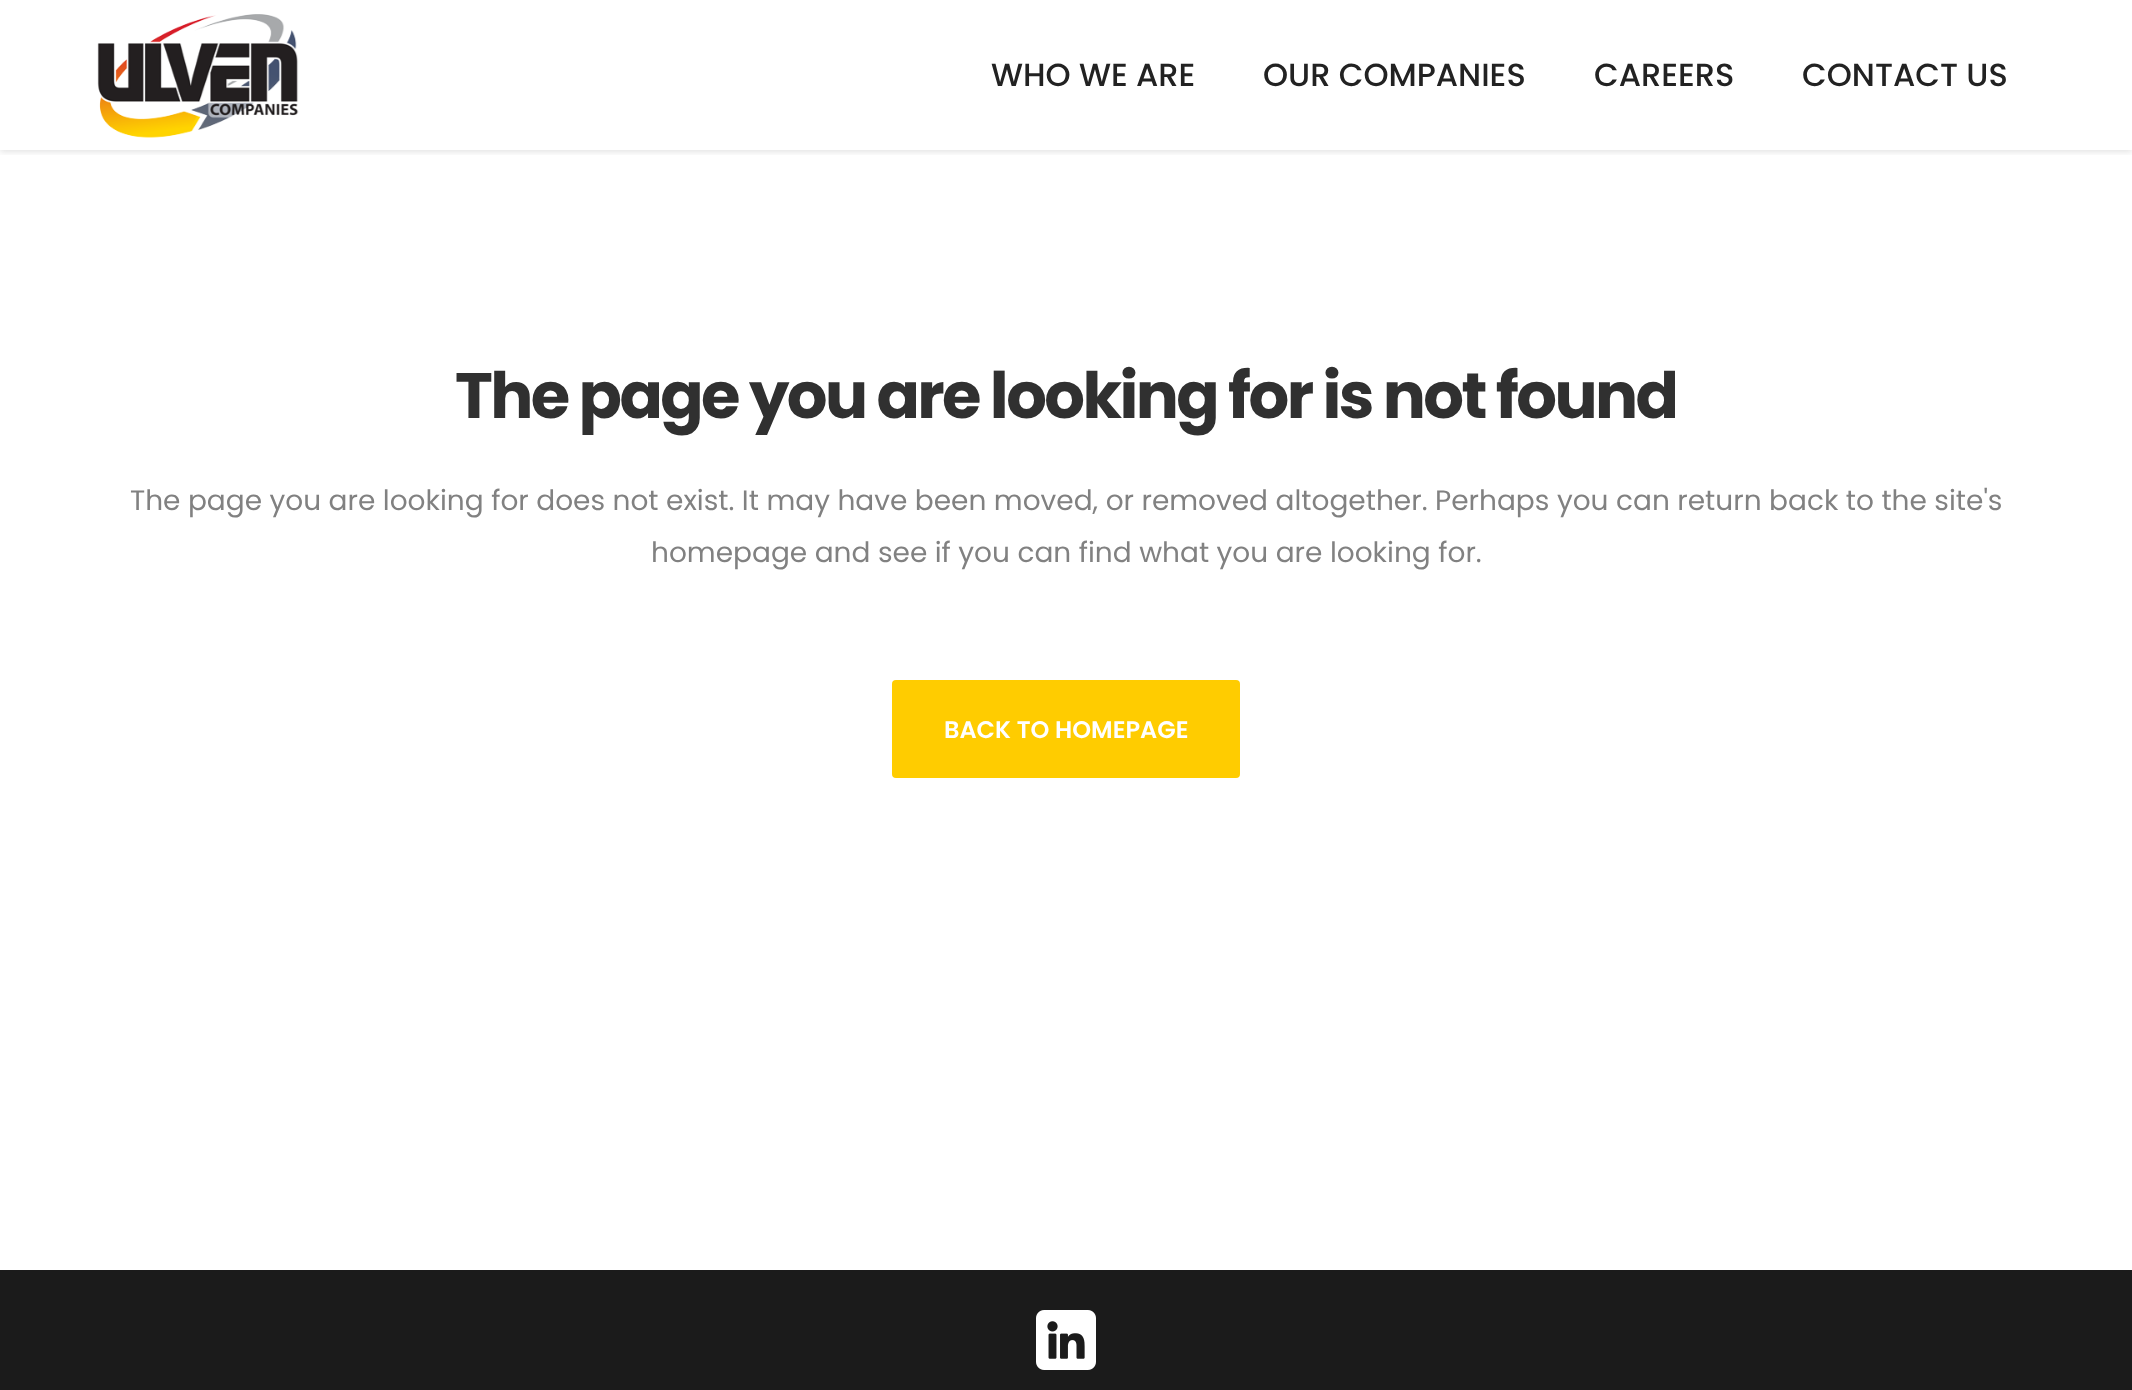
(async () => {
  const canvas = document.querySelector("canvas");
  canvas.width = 2132;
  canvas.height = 1390;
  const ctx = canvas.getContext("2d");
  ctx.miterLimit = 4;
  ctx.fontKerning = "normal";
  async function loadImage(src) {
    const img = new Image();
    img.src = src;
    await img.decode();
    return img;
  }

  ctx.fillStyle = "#ffffff";
  ctx.fillRect(0, 0, 2132, 1390);
  ctx.save();
  ctx.beginPath();
  ctx.rect(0, 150, 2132, 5);
  ctx.clip();
  ctx.fillStyle = "rgba(0, 0, 0, 0.11)";
  ctx.filter = "blur(3px)";
  ctx.beginPath();
  ctx.rect(0, 2, 2132, 150);
  ctx.fill();
  ctx.filter = "none";
  ctx.restore();
  ctx.drawImage(await loadImage("img/1.png"), 97, 14, 202, 124);
  ctx.fillStyle = "#ffcc00";
  ctx.beginPath();
  ctx.roundRect(892, 680, 348, 98, 4);
  ctx.fill();
  ctx.fillStyle = "#1b1b1b";
  ctx.fillRect(0, 1270, 2132, 120);
  ctx.drawImage(await loadImage("img/2.png"), 1036, 1310, 60, 60);
  ctx.font = "500 32px Poppins";
  ctx.fillStyle = "#222222";
  for (const [text, x, y] of [
    ["WHO WE ARE", 991, 86],
    ["OUR COMPANIES", 1263, 86],
    ["CAREERS", 1594, 86],
    ["CONTACT US", 1802, 86],
  ]) {
    ctx.fillText(text, x, y);
  }
  ctx.letterSpacing = "-2.6px";
  ctx.font = "bold 64px Poppins";
  ctx.fillStyle = "#303030";
  ctx.fillText("The page you are looking for is not found", 455, 418);
  ctx.letterSpacing = "0px";
  ctx.font = "28px Poppins";
  ctx.fillStyle = "#818181";
  ctx.fillText("The page you are looking for does not exist. It may have been moved, or removed altogether. Perhaps you can return back to the site's", 130, 510);
  ctx.fillText("homepage and see if you can find what you are looking for.", 651, 562);
  ctx.font = "600 24px Poppins";
  ctx.fillStyle = "#ffffff";
  ctx.fillText("BACK TO HOMEPAGE", 944, 738);
})();
